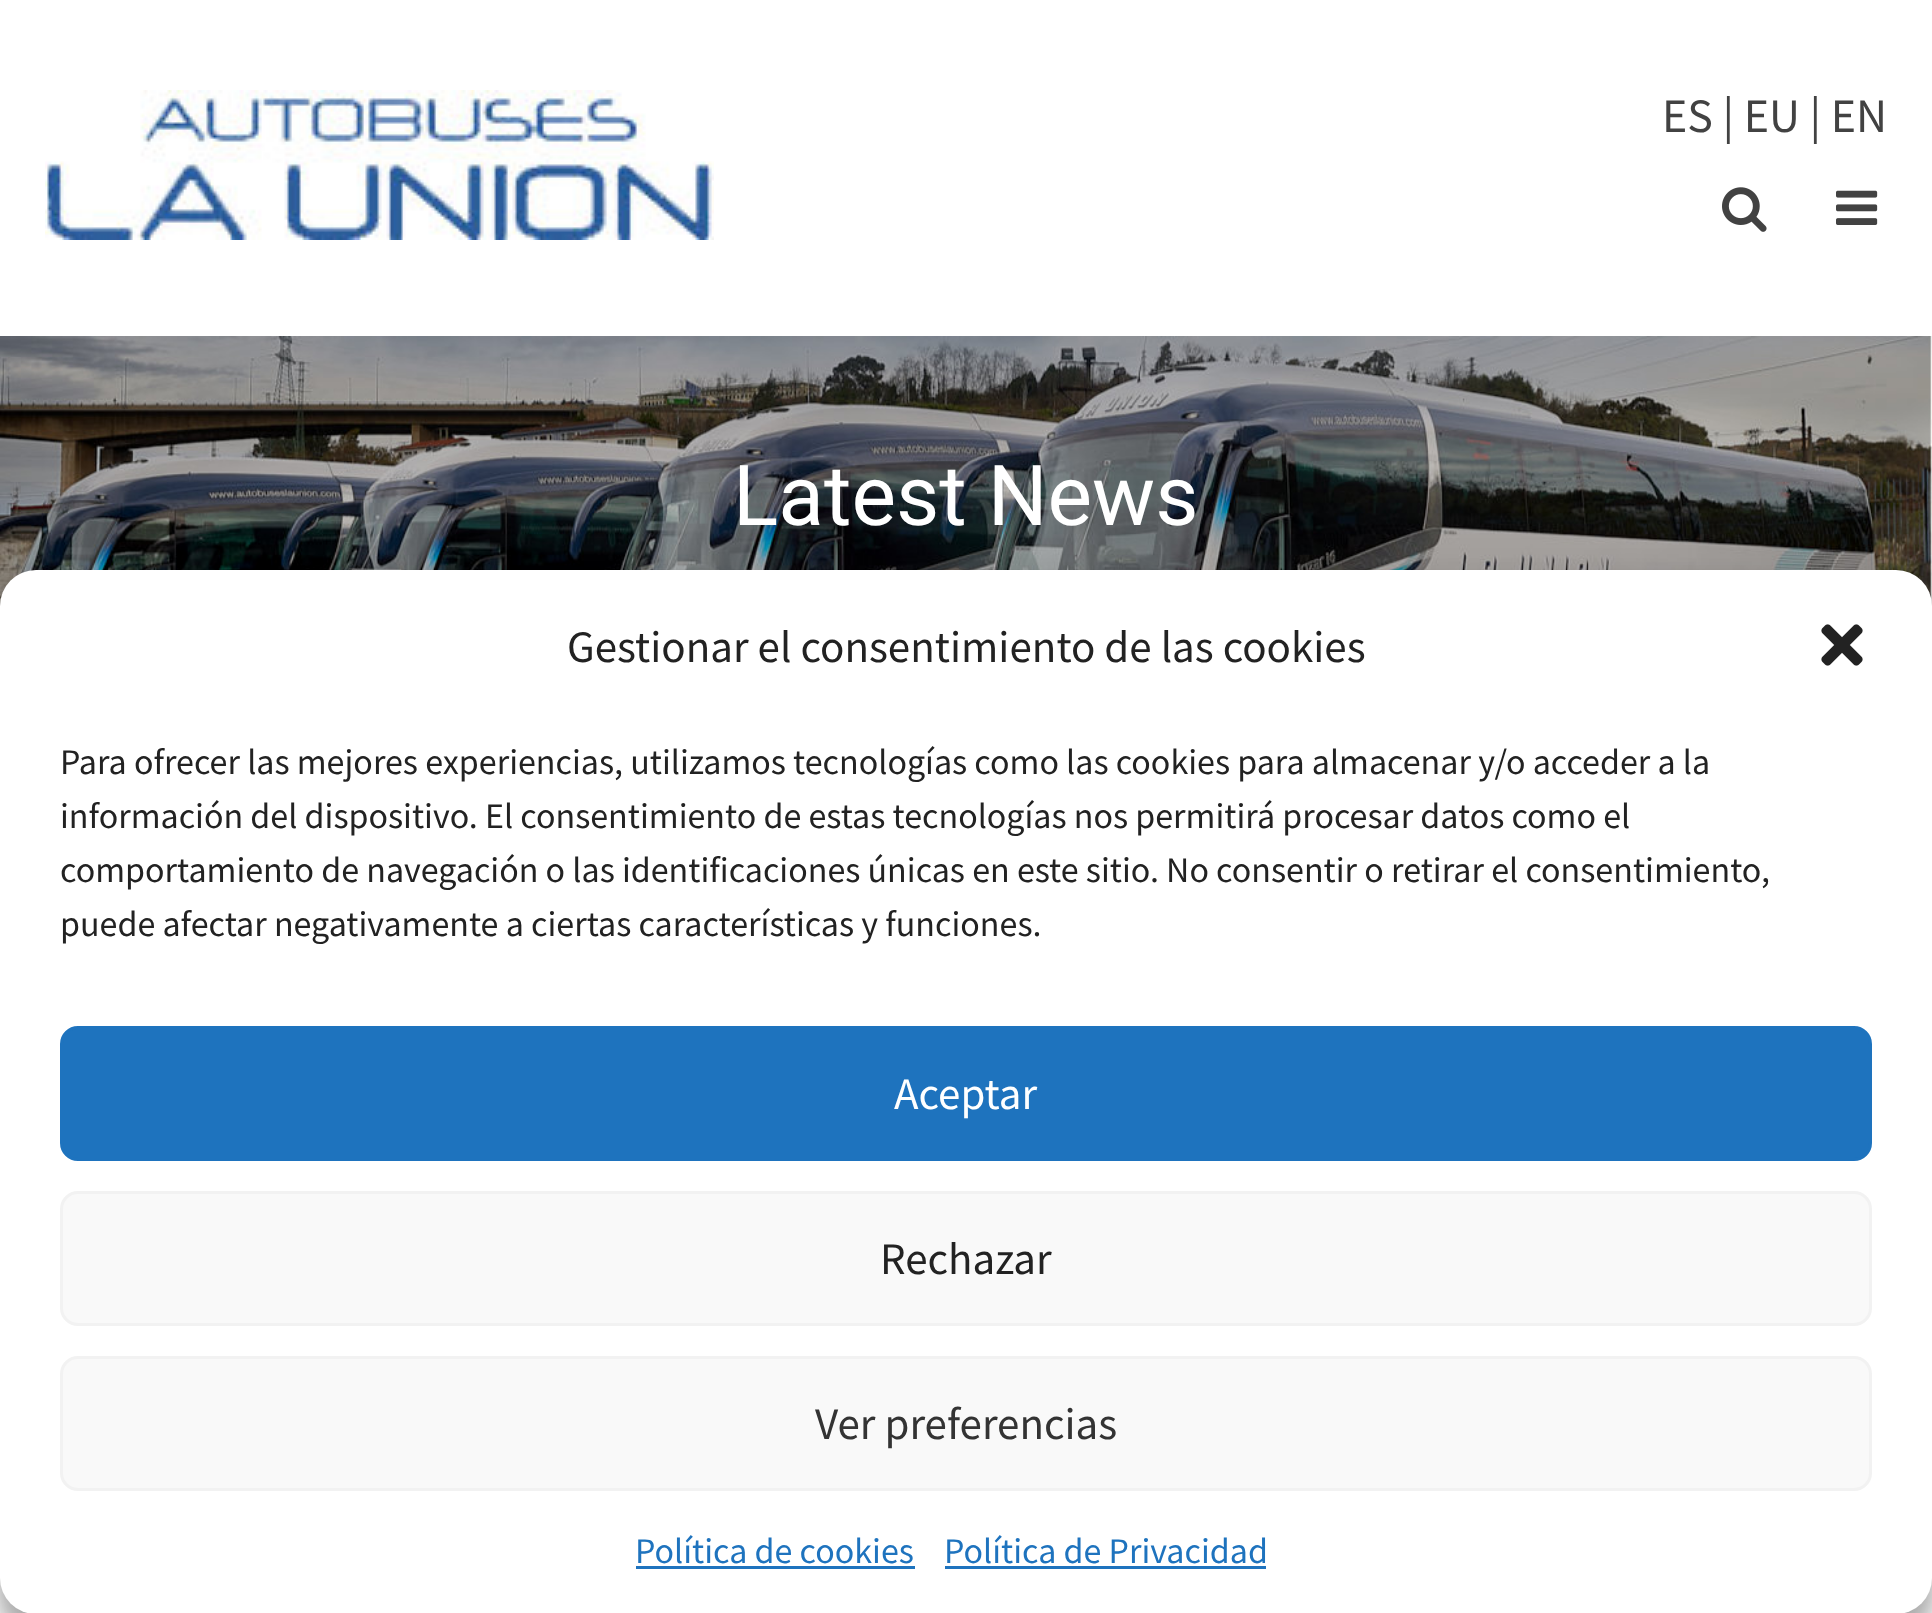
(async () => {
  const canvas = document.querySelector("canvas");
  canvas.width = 1932;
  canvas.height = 1613;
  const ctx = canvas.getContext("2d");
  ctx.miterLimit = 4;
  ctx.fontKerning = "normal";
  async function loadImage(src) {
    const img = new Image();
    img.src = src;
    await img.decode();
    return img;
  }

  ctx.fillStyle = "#ffffff";
  ctx.fillRect(0, 0, 1932, 1613);
  ctx.drawImage(await loadImage("img/1.png"), 45, 90, 669, 150);
  ctx.drawImage(await loadImage("img/2.png"), 1722, 187, 45, 45);
  ctx.drawImage(await loadImage("img/3.png"), 1836, 190, 42, 35);
  ctx.drawImage(await loadImage("img/4.png"), 0, 336, 1932, 270);
  ctx.fillStyle = "rgba(0, 0, 0, 0.23)";
  ctx.filter = "blur(9px)";
  ctx.beginPath();
  ctx.roundRect(0, 588, 1932, 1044, 36);
  ctx.fill();
  ctx.filter = "none";
  ctx.fillStyle = "rgba(0, 0, 0, 0.19)";
  ctx.filter = "blur(30px)";
  ctx.beginPath();
  ctx.roundRect(0, 600, 1932, 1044, 36);
  ctx.fill();
  ctx.filter = "none";
  ctx.fillStyle = "#ffffff";
  ctx.beginPath();
  ctx.roundRect(0, 570, 1932, 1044, 36);
  ctx.fill();
  ctx.drawImage(await loadImage("img/5.png"), 1821, 624, 42, 42);
  ctx.fillStyle = "#1e73be";
  ctx.beginPath();
  ctx.roundRect(61.5, 1027.5, 1809, 132, 16.5);
  ctx.fill();
  ctx.strokeStyle = "#1e73be";
  ctx.lineWidth = 3;
  ctx.stroke();
  ctx.fillStyle = "#f9f9f9";
  ctx.beginPath();
  ctx.roundRect(61.5, 1192.5, 1809, 132, 16.5);
  ctx.fill();
  ctx.strokeStyle = "#f2f2f2";
  ctx.stroke();
  ctx.beginPath();
  ctx.roundRect(61.5, 1357.5, 1809, 132, 16.5);
  ctx.fill();
  ctx.stroke();
  ctx.fillStyle = "#1e73be";
  ctx.fillRect(636, 1566, 279, 3);
  ctx.fillRect(945, 1566, 321, 3);
  ctx.font = "48px Source Sans Pro";
  ctx.fillStyle = "#424242";
  ctx.fillText("ES | EU | EN", 1662, 132);
  ctx.font = "84px Roboto";
  ctx.fillStyle = "#ffffff";
  ctx.fillText("Latest News", 733, 525);
  ctx.font = "45px Source Sans Pro";
  ctx.fillStyle = "#222222";
  ctx.fillText("Gestionar el consentimiento de las cookies", 567, 662);
  ctx.font = "36px Source Sans Pro";
  for (const [text, x, y] of [
    ["Para ofrecer las mejores experiencias, utilizamos tecnologías como las cookies para almacenar y/o acceder a la", 60, 774],
    ["información del dispositivo. El consentimiento de estas tecnologías nos permitirá procesar datos como el", 60, 828],
    ["comportamiento de navegación o las identificaciones únicas en este sitio. No consentir o retirar el consentimiento,", 60, 882],
    ["puede afectar negativamente a ciertas características y funciones.", 60, 936],
  ]) {
    ctx.fillText(text, x, y);
  }
  ctx.font = "45px Source Sans Pro";
  ctx.fillStyle = "#ffffff";
  ctx.fillText("Aceptar", 894, 1109);
  ctx.fillStyle = "#222222";
  ctx.fillText("Rechazar", 880, 1274);
  ctx.fillStyle = "#333333";
  ctx.fillText("Ver preferencias", 815, 1439);
  ctx.font = "36px Source Sans Pro";
  ctx.fillStyle = "#1e73be";
  ctx.fillText("Política de cookies", 635, 1563);
  ctx.fillText("Política de Privacidad", 944, 1563);
})();
